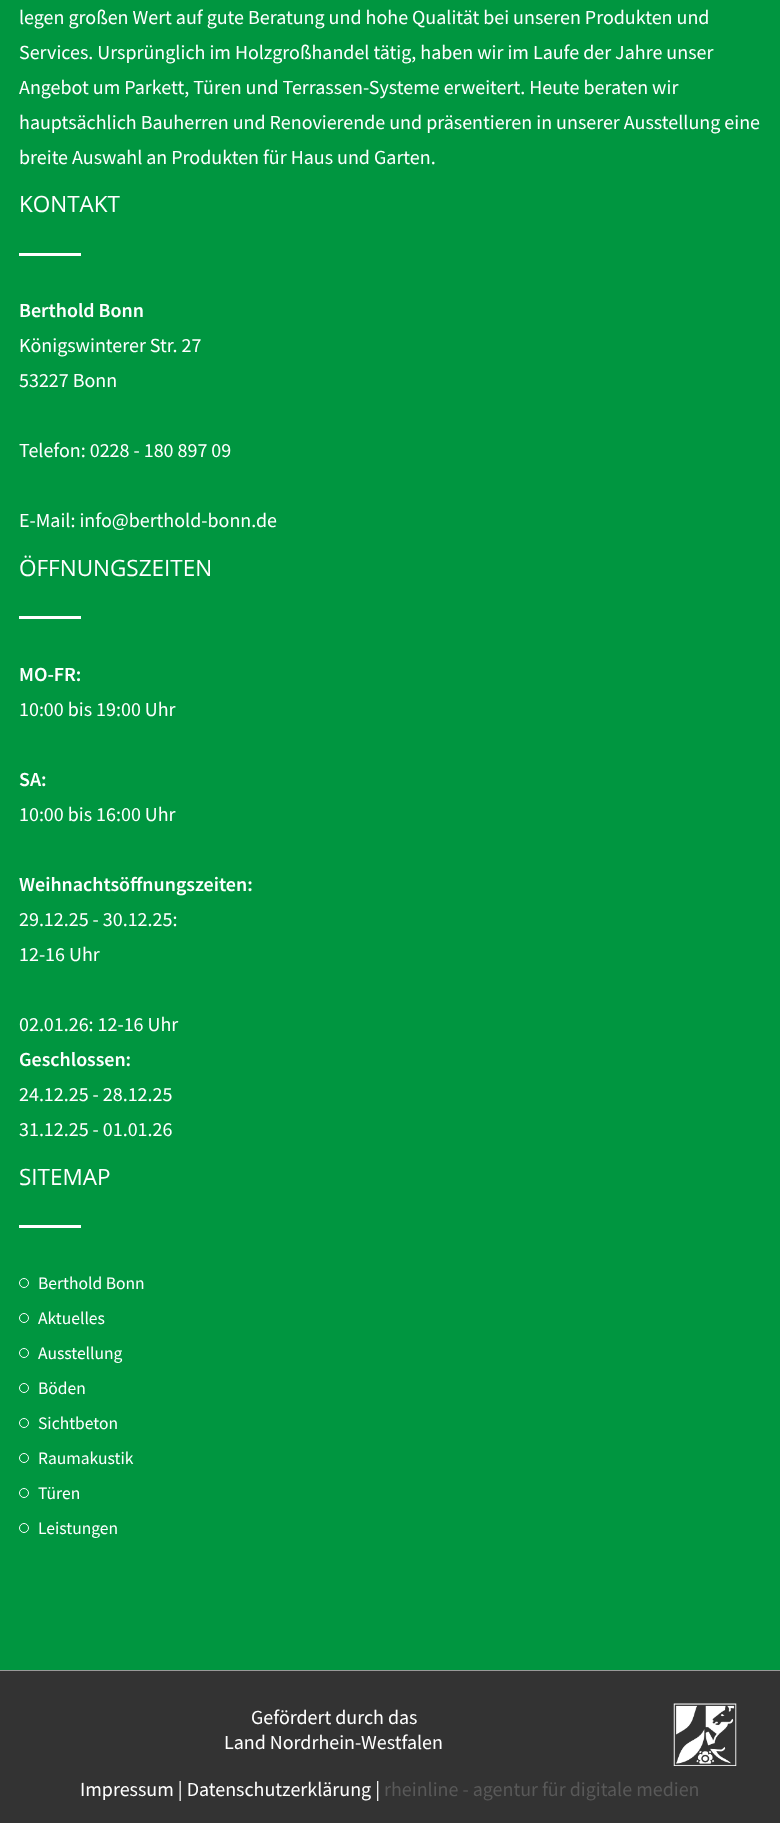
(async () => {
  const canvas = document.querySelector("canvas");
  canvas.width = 780;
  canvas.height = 1823;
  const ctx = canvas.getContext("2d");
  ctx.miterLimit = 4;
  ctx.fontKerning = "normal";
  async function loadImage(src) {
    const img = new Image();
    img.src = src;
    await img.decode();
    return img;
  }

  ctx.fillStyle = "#009640";
  ctx.fillRect(0, 0, 780, 1823);
  for (const [x, y, w, h, color] of [
    [19, 253, 62, 3, "#ffffff"],
    [19, 616, 62, 3, "#ffffff"],
    [19, 1225, 62, 3, "#ffffff"],
  ]) {
    ctx.fillStyle = color;
    ctx.fillRect(x, y, w, h);
  }
  ctx.beginPath();
  ctx.arc(24, 1283, 4.5, 0, Math.PI * 2);
  ctx.strokeStyle = "#ffffff";
  ctx.stroke();
  ctx.beginPath();
  ctx.arc(24, 1318, 4.5, 0, Math.PI * 2);
  ctx.stroke();
  ctx.beginPath();
  ctx.arc(24, 1353, 4.5, 0, Math.PI * 2);
  ctx.stroke();
  ctx.beginPath();
  ctx.arc(24, 1388, 4.5, 0, Math.PI * 2);
  ctx.stroke();
  ctx.beginPath();
  ctx.arc(24, 1423, 4.5, 0, Math.PI * 2);
  ctx.stroke();
  ctx.beginPath();
  ctx.arc(24, 1458, 4.5, 0, Math.PI * 2);
  ctx.stroke();
  ctx.beginPath();
  ctx.arc(24, 1493, 4.5, 0, Math.PI * 2);
  ctx.stroke();
  ctx.beginPath();
  ctx.arc(24, 1528, 4.5, 0, Math.PI * 2);
  ctx.stroke();
  ctx.fillStyle = "#333333";
  ctx.fillRect(0, 1671, 780, 152);
  ctx.fillStyle = "#999999";
  ctx.fillRect(0, 1670, 780, 1);
  ctx.drawImage(await loadImage("img/1.png"), 673, 1703, 64, 63);
  ctx.font = "20px Source Sans Pro";
  ctx.fillStyle = "#ffffff";
  for (const [text, x, y] of [
    ["legen großen Wert auf gute Beratung und hohe Qualität bei unseren Produkten und", 19, 24],
    ["Services. Ursprünglich im Holzgroßhandel tätig, haben wir im Laufe der Jahre unser", 19, 59],
    ["Angebot um Parkett, Türen und Terrassen-Systeme erweitert. Heute beraten wir", 19, 94],
    ["hauptsächlich Bauherren und Renovierende und präsentieren in unserer Ausstellung eine", 19, 129],
    ["breite Auswahl an Produkten für Haus und Garten.", 19, 164],
  ]) {
    ctx.fillText(text, x, y);
  }
  ctx.font = "22.5px Open Sans";
  ctx.fillText("KONTAKT", 19, 212);
  ctx.font = "600 20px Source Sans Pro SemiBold";
  ctx.fillText("Berthold Bonn", 19, 317);
  ctx.font = "20px Source Sans Pro";
  for (const [text, x, y] of [
    ["Königswinterer Str. 27", 19, 352],
    ["53227 Bonn", 19, 387],
    ["Telefon: 0228 - 180 897 09", 19, 457],
    ["E-Mail: info@berthold-bonn.de", 19, 527],
  ]) {
    ctx.fillText(text, x, y);
  }
  ctx.font = "22.5px Open Sans";
  ctx.fillText("ÖFFNUNGSZEITEN", 19, 576);
  ctx.font = "600 20px Source Sans Pro SemiBold";
  ctx.fillText("MO-FR:", 19, 681);
  ctx.font = "20px Source Sans Pro";
  ctx.fillText("10:00 bis 19:00 Uhr", 19, 716);
  ctx.font = "600 20px Source Sans Pro SemiBold";
  ctx.fillText("SA:", 19, 786);
  ctx.font = "20px Source Sans Pro";
  ctx.fillText("10:00 bis 16:00 Uhr", 19, 821);
  ctx.font = "600 20px Source Sans Pro SemiBold";
  ctx.fillText("Weihnachtsöffnungszeiten:", 19, 891);
  ctx.font = "20px Source Sans Pro";
  for (const [text, x, y] of [
    ["29.12.25 - 30.12.25:", 19, 926],
    ["12-16 Uhr", 19, 961],
    ["02.01.26: 12-16 Uhr", 19, 1031],
  ]) {
    ctx.fillText(text, x, y);
  }
  ctx.font = "600 20px Source Sans Pro SemiBold";
  ctx.fillText("Geschlossen:", 19, 1066);
  ctx.font = "20px Source Sans Pro";
  ctx.fillText("24.12.25 - 28.12.25", 19, 1101);
  ctx.fillText("31.12.25 - 01.01.26", 19, 1136);
  ctx.font = "22.5px Open Sans";
  ctx.fillText("SITEMAP", 19, 1185);
  ctx.font = "17.5px Source Sans Pro";
  for (const [text, x, y] of [
    ["Berthold Bonn", 38, 1289],
    ["Aktuelles", 38, 1324],
    ["Ausstellung", 38, 1359],
    ["Böden", 38, 1394],
    ["Sichtbeton", 38, 1429],
    ["Raumakustik", 38, 1464],
    ["Türen", 38, 1499],
    ["Leistungen", 38, 1534],
  ]) {
    ctx.fillText(text, x, y);
  }
  ctx.font = "20px Source Sans Pro";
  for (const [text, x, y] of [
    ["Gefördert durch das", 251, 1724],
    ["Land Nordrhein-Westfalen", 224, 1749],
    ["Impressum | Datenschutzerklärung |", 80, 1796],
  ]) {
    ctx.fillText(text, x, y);
  }
  ctx.fillStyle = "#595959";
  ctx.fillText("rheinline - agentur für digitale medien", 384, 1796);
})();
